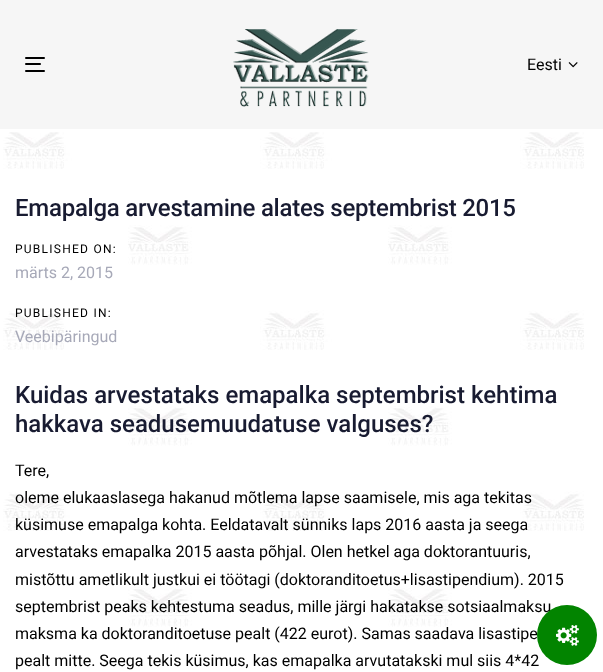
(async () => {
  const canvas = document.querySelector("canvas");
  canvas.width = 603;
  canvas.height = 672;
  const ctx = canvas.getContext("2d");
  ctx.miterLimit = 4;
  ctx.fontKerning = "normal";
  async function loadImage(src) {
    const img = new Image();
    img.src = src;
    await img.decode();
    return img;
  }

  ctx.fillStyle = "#ffffff";
  ctx.fillRect(0, 0, 603, 672);
  ctx.fillStyle = "#f6f6f6";
  ctx.fillRect(0, 0, 603, 129);
  ctx.fillStyle = "#000000";
  ctx.beginPath();
  ctx.roundRect(25, 57, 20, 2, 1);
  ctx.fill();
  ctx.beginPath();
  ctx.roundRect(25, 63, 16, 2, 1);
  ctx.fill();
  ctx.beginPath();
  ctx.roundRect(25, 70, 20, 2, 1);
  ctx.fill();
  ctx.drawImage(await loadImage("img/1.png"), 233, 29, 136, 78);
  ctx.drawImage(await loadImage("img/2.png"), 568, 62, 10, 6);
  ctx.drawImage(await loadImage("img/3.png"), 3, 132, 581, 495);
  ctx.font = "16px Roboto";
  ctx.fillText("Eesti", 527, 70);
  ctx.letterSpacing = "-0.25px";
  ctx.font = "500 24px Roboto";
  ctx.fillStyle = "#181b31";
  ctx.fillText("Emapalga arvestamine alates septembrist 2015", 15, 216);
  ctx.letterSpacing = "1.25px";
  ctx.font = "12px Roboto";
  ctx.fillStyle = "#000000";
  ctx.fillText("PUBLISHED ON:", 15, 253);
  ctx.letterSpacing = "0px";
  ctx.font = "16px Roboto";
  ctx.fillStyle = "#a7a9b8";
  ctx.fillText("märts 2, 2015", 15, 278);
  ctx.letterSpacing = "1.25px";
  ctx.font = "12px Roboto";
  ctx.fillStyle = "#000000";
  ctx.fillText("PUBLISHED IN:", 15, 317);
  ctx.letterSpacing = "0px";
  ctx.font = "16px Roboto";
  ctx.fillStyle = "#a7a9b8";
  ctx.fillText("Veebipäringud", 15, 342);
  ctx.font = "500 24px Roboto";
  ctx.fillStyle = "#181b31";
  ctx.fillText("Kuidas arvestataks emapalka septembrist kehtima", 15, 403);
  ctx.fillText("hakkava seadusemuudatuse valguses?", 15, 432);
  ctx.font = "16px Roboto";
  ctx.fillStyle = "#000000";
  for (const [text, x, y] of [
    ["Tere,", 15, 476],
    ["oleme elukaaslasega hakanud mõtlema lapse saamisele, mis aga tekitas", 15, 503],
    ["küsimuse emapalga kohta. Eeldatavalt sünniks laps 2016 aasta ja seega", 15, 530],
    ["arvestataks emapalka 2015 aasta põhjal. Olen hetkel aga doktorantuuris,", 15, 557],
    ["mistõttu ametlikult justkui ei töötagi (doktoranditoetus+lisastipendium). 2015", 15, 585],
    ["septembrist peaks kehtestuma seadus, mille järgi hakatakse sotsiaalmaksu", 15, 612],
    ["maksma ka doktoranditoetuse pealt (422 eurot). Samas saadava lisastipe", 15, 639],
    ["pealt mitte. Seega tekis küsimus, kas emapalka arvutatakski mul siis 4*42", 15, 666],
  ]) {
    ctx.fillText(text, x, y);
  }
  ctx.fillStyle = "#028400";
  ctx.beginPath();
  ctx.arc(567, 635, 30, 0, Math.PI * 2);
  ctx.fill();
  ctx.drawImage(await loadImage("img/4.png"), 556, 625, 23, 21);
})();
